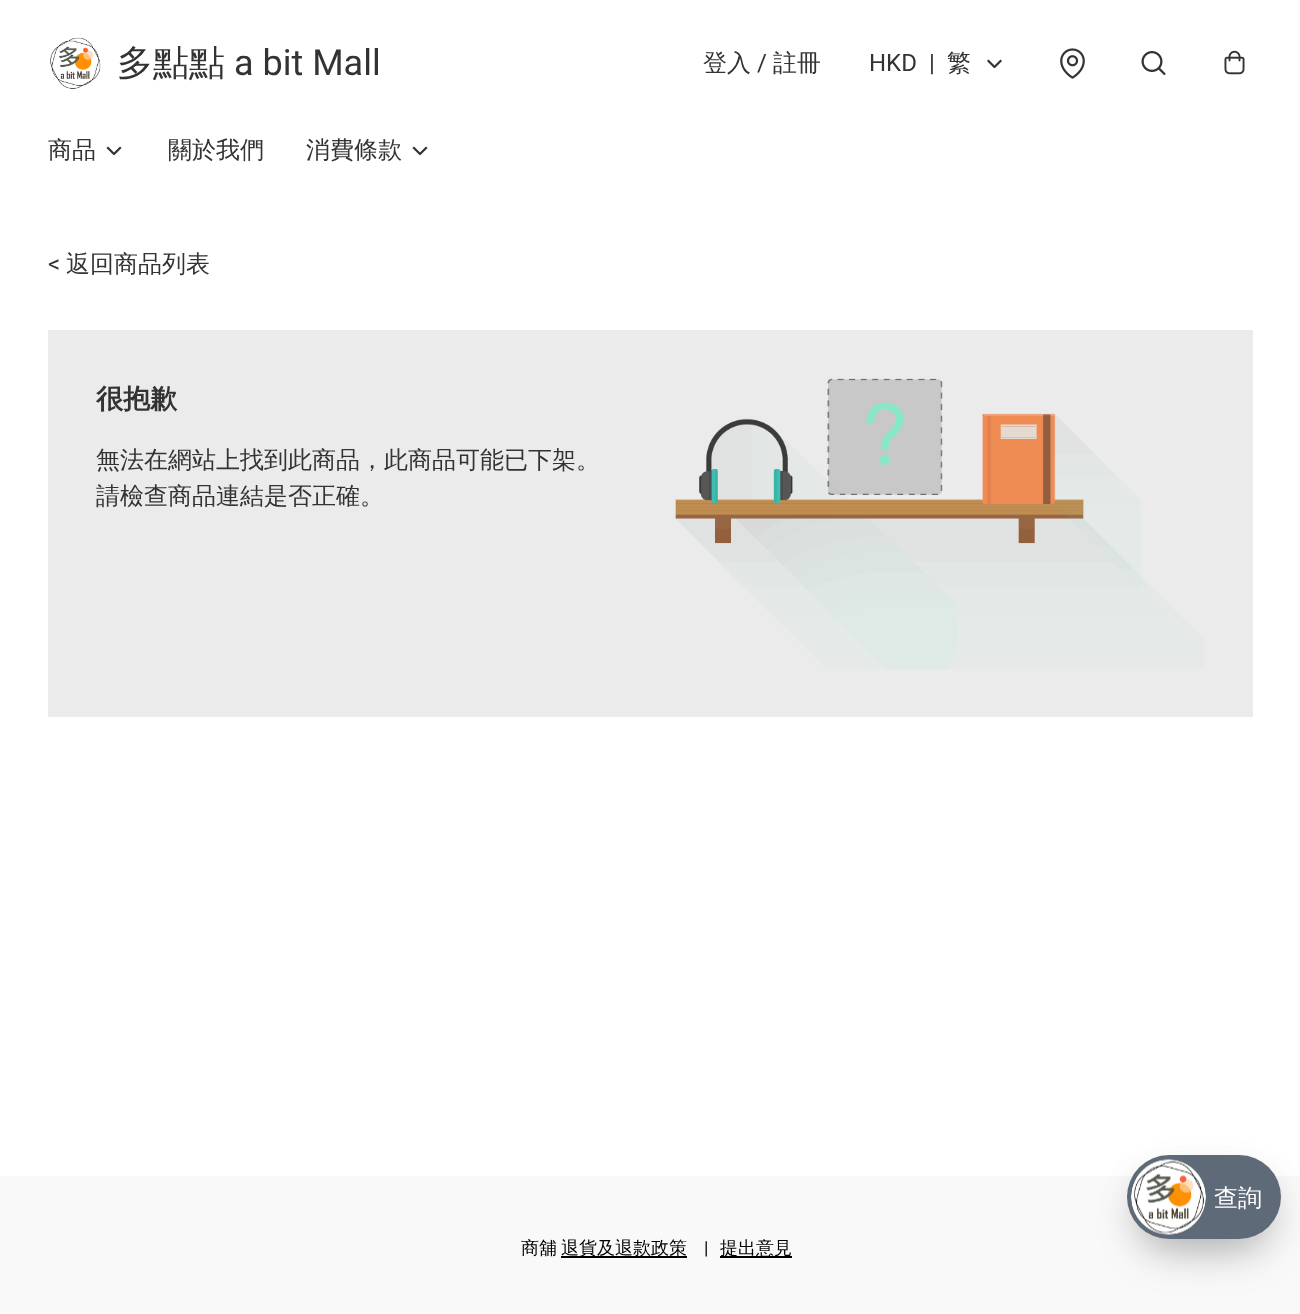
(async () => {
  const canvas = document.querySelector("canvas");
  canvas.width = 1300;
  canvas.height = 1314;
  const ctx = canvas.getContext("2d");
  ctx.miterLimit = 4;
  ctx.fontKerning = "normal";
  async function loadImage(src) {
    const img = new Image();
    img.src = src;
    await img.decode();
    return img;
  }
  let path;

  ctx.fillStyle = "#ffffff";
  ctx.fillRect(0, 0, 1300, 1314);
  ctx.drawImage(await loadImage("img/1.png"), 50, 37, 51, 52);
  path = new Path2D("M988.5 61L994.5 67L1000.5 61");
  ctx.strokeStyle = "#333333";
  ctx.lineWidth = 2.2;
  ctx.lineCap = "square";
  ctx.lineJoin = "round";
  ctx.stroke(path);
  ctx.drawImage(await loadImage("img/2.png"), 1060, 48, 25, 31);
  ctx.drawImage(await loadImage("img/3.png"), 1141, 51, 25, 24);
  ctx.drawImage(await loadImage("img/4.png"), 1224, 50, 21, 25);
  path = new Path2D("M108 148L114 154L120 148");
  ctx.stroke(path);
  path = new Path2D("M414 148L420 154L426 148");
  ctx.stroke(path);
  ctx.fillStyle = "#ebebeb";
  ctx.fillRect(48, 330, 1205, 387);
  ctx.drawImage(await loadImage("img/5.png"), 675, 378, 529, 291);
  for (const [x, y, w, h, color] of [
    [0, 1176, 1300, 138, "#f9f9f9"],
    [561, 1256, 126, 2, "#000000"],
    [720, 1256, 72, 2, "#000000"],
  ]) {
    ctx.fillStyle = color;
    ctx.fillRect(x, y, w, h);
  }
  ctx.fillStyle = "rgba(0, 0, 0, 0.3)";
  ctx.filter = "blur(22.5px)";
  ctx.beginPath();
  ctx.roundRect(1142, 1193, 124, 54, 27);
  ctx.fill();
  ctx.filter = "none";
  ctx.fillStyle = "rgba(0, 0, 0, 0.05)";
  ctx.filter = "blur(15px)";
  ctx.beginPath();
  ctx.roundRect(1127, 1163, 154, 84, 42);
  ctx.fill();
  ctx.filter = "none";
  ctx.fillStyle = "#5f6a78";
  ctx.beginPath();
  ctx.roundRect(1127, 1155, 154, 84, 42);
  ctx.fill();
  ctx.drawImage(await loadImage("img/6.png"), 1131, 1159, 75, 76);
  ctx.font = "500 36px WenQuanYi Zen Hei";
  ctx.fillStyle = "#333333";
  ctx.fillText("多點點", 117, 75);
  ctx.font = "36px Roboto";
  ctx.fillText("a bit Mall", 234, 75);
  ctx.font = "500 24px WenQuanYi Zen Hei";
  ctx.fillText("登入", 703, 71);
  ctx.font = "24px Roboto";
  ctx.fillText("/", 757, 71);
  ctx.font = "500 24px WenQuanYi Zen Hei";
  ctx.fillText("註冊", 773, 71);
  ctx.font = "24px Roboto";
  ctx.fillText("HKD", 869, 71);
  ctx.fillText("|", 929, 71);
  ctx.font = "500 24px WenQuanYi Zen Hei";
  for (const [text, x, y] of [
    ["繁", 947, 71],
    ["商品", 48, 158],
    ["關於我們", 168, 158],
    ["消費條款", 306, 158],
  ]) {
    ctx.fillText(text, x, y);
  }
  ctx.font = "24px Roboto";
  ctx.fillText("<", 48, 272);
  ctx.font = "500 24px WenQuanYi Zen Hei";
  ctx.fillText("返回商品列表", 66, 272);
  ctx.font = "bold 27px WenQuanYi Zen Hei";
  ctx.fillText("很抱歉", 96, 408);
  ctx.font = "500 24px WenQuanYi Zen Hei";
  ctx.fillText("無法在網站上找到此商品，此商品可能已下架。", 96, 468);
  ctx.fillText("請檢查商品連結是否正確。", 96, 504);
  ctx.font = "500 18px WenQuanYi Zen Hei";
  ctx.fillStyle = "#000000";
  ctx.fillText("商舖", 521, 1254);
  ctx.fillText("退貨及退款政策", 561, 1254);
  ctx.font = "18px Roboto";
  ctx.fillText("|", 704, 1254);
  ctx.font = "500 18px WenQuanYi Zen Hei";
  ctx.fillText("提出意見", 720, 1254);
  ctx.font = "500 24px WenQuanYi Zen Hei";
  ctx.fillStyle = "#ffffff";
  ctx.fillText("查詢", 1214, 1206);
})();
